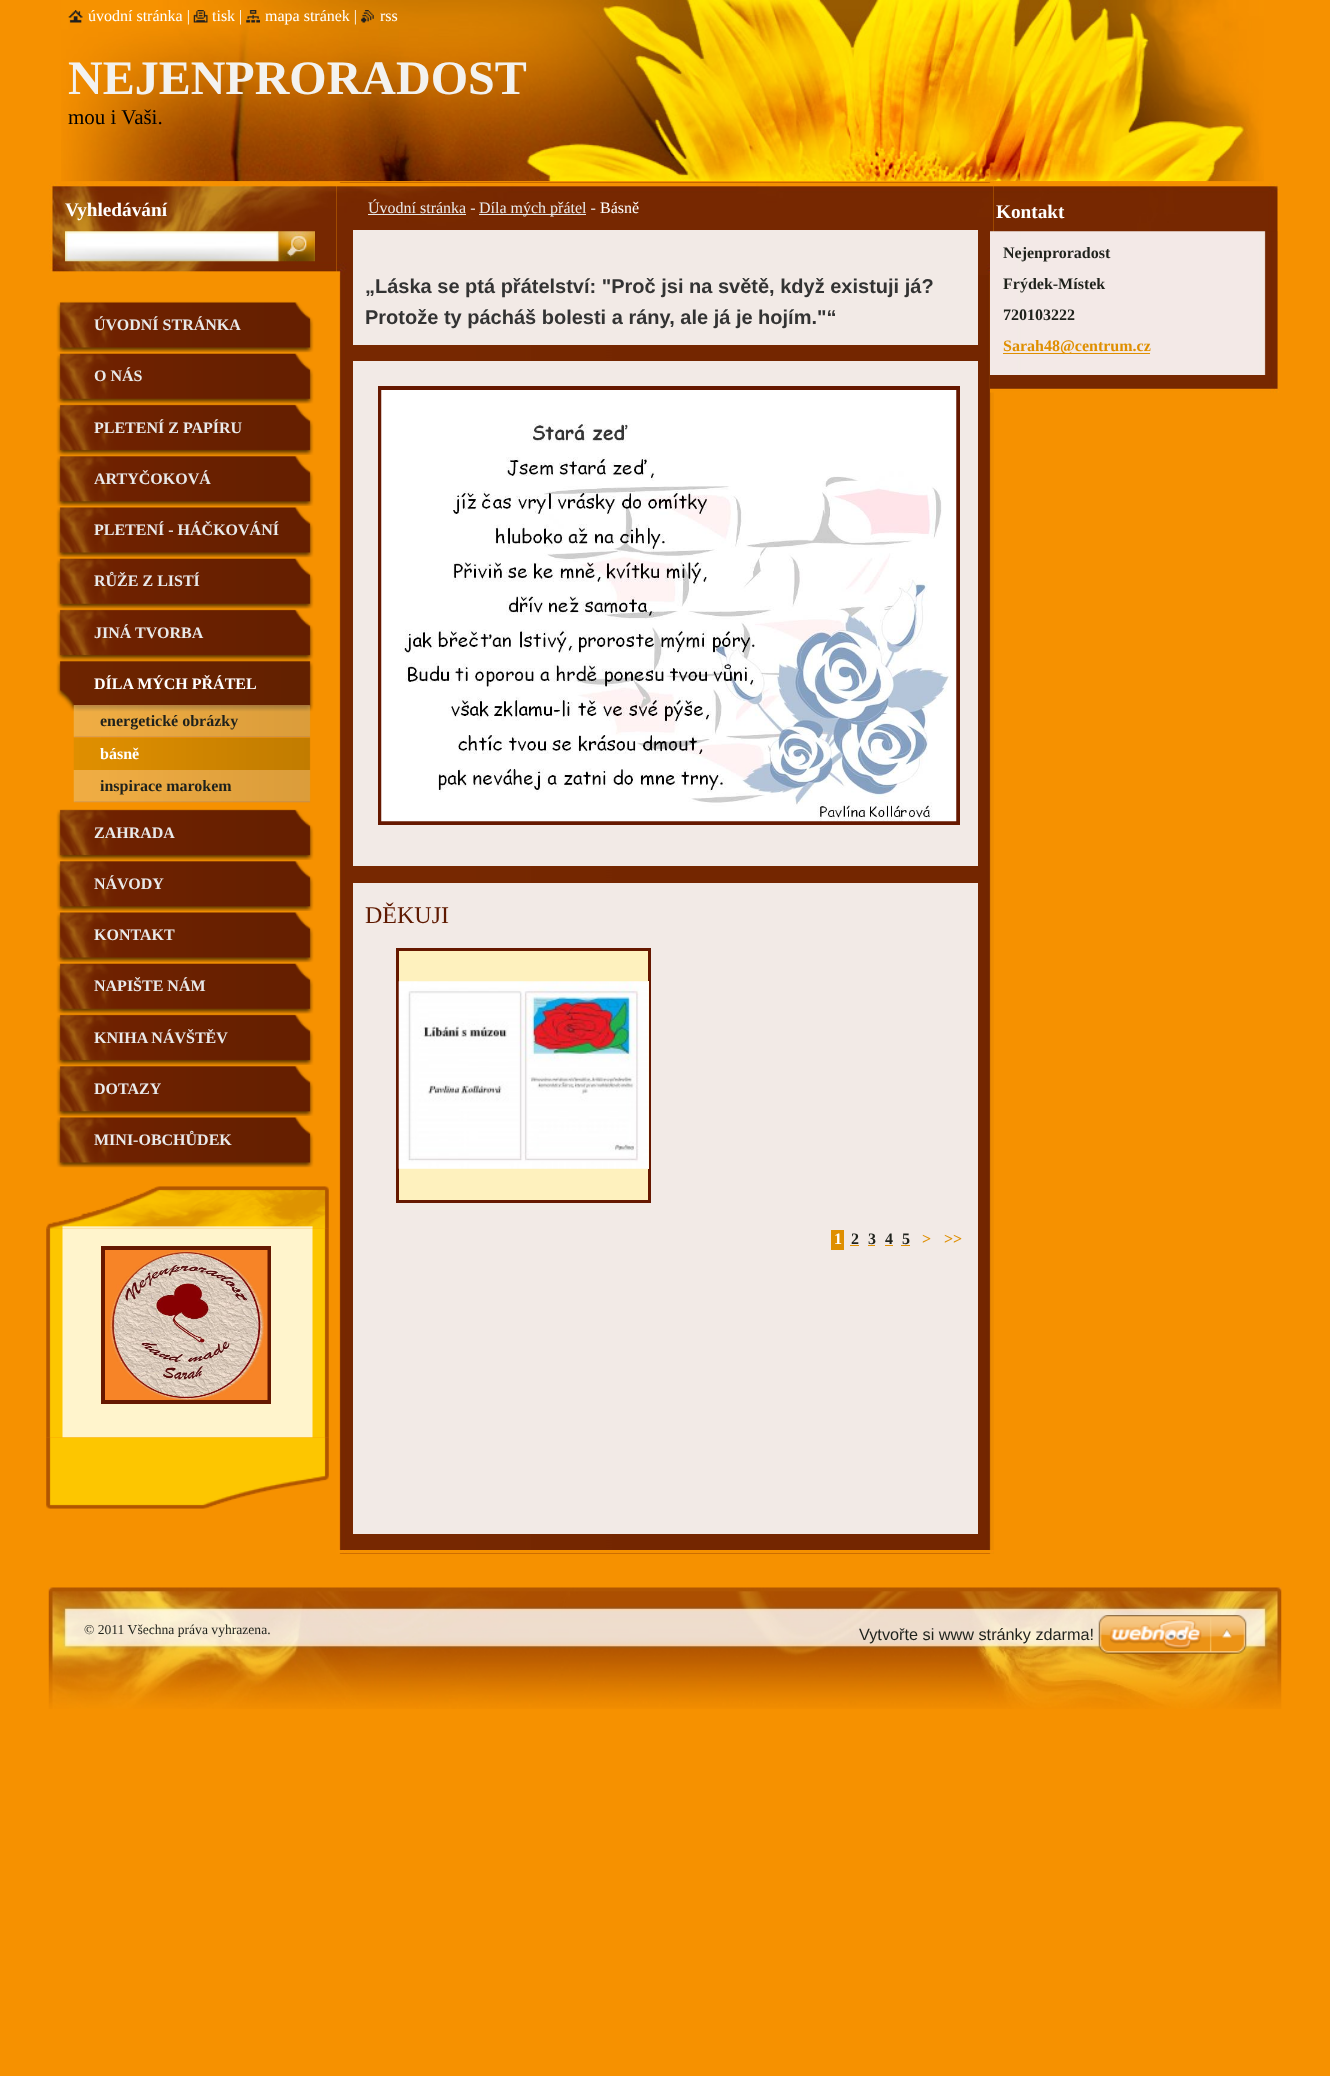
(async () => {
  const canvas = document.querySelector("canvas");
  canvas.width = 1330;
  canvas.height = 2076;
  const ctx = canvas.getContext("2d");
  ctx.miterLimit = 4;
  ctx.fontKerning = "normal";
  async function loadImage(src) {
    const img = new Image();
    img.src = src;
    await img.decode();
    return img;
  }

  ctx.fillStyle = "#f69100";
  ctx.fillRect(0, 0, 1330, 2076);
  ctx.drawImage(await loadImage("img/5.png"), 61, 0, 1203, 182);
  ctx.drawImage(await loadImage("img/1.png"), 68, 10, 15, 13);
  ctx.drawImage(await loadImage("img/2.png"), 193, 10, 15, 13);
  ctx.drawImage(await loadImage("img/3.png"), 246, 10, 14, 13);
  ctx.drawImage(await loadImage("img/4.png"), 361, 10, 13, 13);
  ctx.drawImage(await loadImage("img/6.png"), 49, 182, 1230, 93);
  ctx.drawImage(await loadImage("img/7.png"), 65, 231, 214, 31);
  ctx.drawImage(await loadImage("img/8.png"), 278, 231, 37, 31);
  ctx.drawImage(await loadImage("img/9.png"), 336, 182, 658, 1372);
  ctx.drawImage(await loadImage("img/10.png"), 336, 182, 658, 93);
  for (const [x, y, w, h, color] of [
    [368, 214, 98, 1, "#e9e9e9"],
    [479, 214, 107, 1, "#e9e9e9"],
    [353, 230, 625, 115, "#f2eae6"],
    [353, 361, 625, 505, "#f2eae6"],
  ]) {
    ctx.fillStyle = color;
    ctx.fillRect(x, y, w, h);
  }
  ctx.strokeStyle = "#661800";
  ctx.lineWidth = 4;
  ctx.strokeRect(380, 388, 578, 435);
  ctx.drawImage(await loadImage("img/11.png"), 381, 390, 576, 432);
  ctx.fillRect(353, 883, 625, 651);
  ctx.fillStyle = "#fef1be";
  ctx.beginPath();
  ctx.rect(397.5, 949.5, 252, 252);
  ctx.fill();
  ctx.lineWidth = 3;
  ctx.stroke();
  ctx.fillRect(648, 981, 1, 188);
  ctx.drawImage(await loadImage("img/12.png"), 398, 981, 251, 188);
  for (const [x, y, w, h, color] of [
    [831, 1230, 13, 20, "#df8f00"],
    [850, 1245, 9, 1, "#df8f00"],
    [868, 1245, 7, 1, "#df8f00"],
    [885, 1245, 8, 1, "#df8f00"],
    [901, 1245, 9, 1, "#df8f00"],
  ]) {
    ctx.fillStyle = color;
    ctx.fillRect(x, y, w, h);
  }
  ctx.drawImage(await loadImage("img/13.png"), 339, 1550, 655, 4);
  ctx.drawImage(await loadImage("img/14.png"), 990, 231, 289, 144);
  ctx.fillRect(1003, 353, 147, 1);
  ctx.drawImage(await loadImage("img/15.png"), 990, 375, 290, 18);
  ctx.drawImage(await loadImage("img/16.png"), 56, 301, 258, 52);
  ctx.drawImage(await loadImage("img/17.png"), 56, 353, 258, 51);
  ctx.drawImage(await loadImage("img/18.png"), 56, 404, 258, 51);
  ctx.drawImage(await loadImage("img/19.png"), 56, 455, 258, 51);
  ctx.drawImage(await loadImage("img/16.png"), 56, 506, 258, 52);
  ctx.drawImage(await loadImage("img/20.png"), 56, 558, 258, 51);
  ctx.drawImage(await loadImage("img/18.png"), 56, 609, 258, 51);
  ctx.drawImage(await loadImage("img/21.png"), 56, 660, 258, 52);
  ctx.drawImage(await loadImage("img/22.png"), 73, 705, 238, 33);
  ctx.drawImage(await loadImage("img/23.png"), 73, 737, 238, 33);
  ctx.drawImage(await loadImage("img/24.png"), 73, 770, 238, 33);
  ctx.drawImage(await loadImage("img/18.png"), 56, 809, 258, 51);
  ctx.drawImage(await loadImage("img/19.png"), 56, 860, 258, 51);
  ctx.drawImage(await loadImage("img/16.png"), 56, 911, 258, 52);
  ctx.drawImage(await loadImage("img/17.png"), 56, 963, 258, 51);
  ctx.drawImage(await loadImage("img/18.png"), 56, 1014, 258, 51);
  ctx.drawImage(await loadImage("img/19.png"), 56, 1065, 258, 51);
  ctx.drawImage(await loadImage("img/16.png"), 56, 1116, 258, 52);
  ctx.drawImage(await loadImage("img/25.png"), 46, 1186, 283, 43);
  ctx.drawImage(await loadImage("img/26.png"), 46, 1228, 283, 210);
  ctx.lineWidth = 4;
  ctx.strokeRect(103, 1248, 166, 154);
  ctx.drawImage(await loadImage("img/27.png"), 105, 1250, 163, 150);
  ctx.drawImage(await loadImage("img/28.png"), 46, 1437, 283, 72);
  ctx.drawImage(await loadImage("img/29.png"), 48, 1587, 1234, 122);
  ctx.drawImage(await loadImage("img/30.png"), 1098, 1615, 149, 39);
  ctx.font = "16px Liberation Serif";
  ctx.fillStyle = "#ffffff";
  for (const [text, x, y] of [
    ["úvodní stránka |", 88, 21],
    ["tisk |", 212, 21],
    ["mapa stránek |", 265, 21],
    ["rss", 380, 21],
  ]) {
    ctx.fillText(text, x, y);
  }
  ctx.font = "bold 48px Liberation Serif";
  ctx.fillStyle = "#f3f2ef";
  ctx.fillText("NEJENPRORADOST", 68, 94);
  ctx.font = "21px Liberation Serif";
  ctx.fillStyle = "#000000";
  ctx.fillText("mou i Vaši.", 68, 124);
  ctx.font = "bold 19.25px Liberation Serif";
  ctx.fillStyle = "#ffffff";
  ctx.fillText("Vyhledávání", 65, 216);
  ctx.font = "16px Liberation Serif";
  ctx.fillStyle = "#e9e9e9";
  ctx.fillText("Úvodní stránka -", 368, 213);
  ctx.fillText("Díla mých přátel -", 479, 213);
  ctx.fillStyle = "#ffffff";
  ctx.fillText("Básně", 600, 213);
  ctx.font = "bold 20px Liberation Sans";
  ctx.fillStyle = "#333333";
  ctx.fillText("„Láska se ptá přátelství: \"Proč jsi na světě, když existuji já?", 365, 293);
  ctx.fillText("Protože ty pácháš bolesti a rány, ale já je hojím.\"“", 365, 324);
  ctx.font = "24px Liberation Serif";
  ctx.fillStyle = "#5f1900";
  ctx.fillText("DĚKUJI", 365, 923);
  ctx.font = "bold 16px Liberation Serif";
  ctx.fillStyle = "#ffffff";
  ctx.fillText("1", 834, 1244);
  ctx.fillStyle = "#1f221c";
  for (const [text, x, y] of [
    ["2", 851, 1244],
    ["3", 868, 1244],
    ["4", 885, 1244],
    ["5", 902, 1244],
  ]) {
    ctx.fillText(text, x, y);
  }
  ctx.fillStyle = "#df8f00";
  ctx.fillText(">", 922, 1244);
  ctx.fillText(">>", 944, 1244);
  ctx.font = "bold 19.25px Liberation Serif";
  ctx.fillStyle = "#ffffff";
  ctx.fillText("Kontakt", 996, 218);
  ctx.font = "bold 16px Liberation Serif";
  ctx.fillStyle = "#1f221c";
  for (const [text, x, y] of [
    ["Nejenproradost", 1003, 258],
    ["Frýdek-Místek", 1003, 289],
    ["720103222", 1003, 320],
  ]) {
    ctx.fillText(text, x, y);
  }
  ctx.fillStyle = "#df8f00";
  ctx.fillText("Sarah48@centrum.cz", 1003, 351);
  ctx.fillStyle = "#e9e9e9";
  for (const [text, x, y] of [
    ["ÚVODNÍ STRÁNKA", 94, 330],
    ["O NÁS", 94, 381],
    ["PLETENÍ Z PAPÍRU", 94, 433],
    ["ARTYČOKOVÁ", 94, 484],
    ["PLETENÍ - HÁČKOVÁNÍ", 94, 535],
    ["RŮŽE Z LISTÍ", 94, 586],
    ["JINÁ TVORBA", 94, 638],
  ]) {
    ctx.fillText(text, x, y);
  }
  ctx.fillStyle = "#ffffff";
  ctx.fillText("DÍLA MÝCH PŘÁTEL", 94, 689);
  ctx.fillStyle = "#1f221c";
  ctx.fillText("energetické obrázky", 100, 726);
  ctx.fillStyle = "#ffffff";
  ctx.fillText("básně", 100, 759);
  ctx.fillStyle = "#1f221c";
  ctx.fillText("inspirace marokem", 100, 791);
  ctx.fillStyle = "#e9e9e9";
  for (const [text, x, y] of [
    ["ZAHRADA", 94, 838],
    ["NÁVODY", 94, 889],
    ["KONTAKT", 94, 940],
    ["NAPIŠTE NÁM", 94, 991],
    ["KNIHA NÁVŠTĚV", 94, 1043],
    ["DOTAZY", 94, 1094],
    ["MINI-OBCHŮDEK", 94, 1145],
  ]) {
    ctx.fillText(text, x, y);
  }
  ctx.font = "13.6px Liberation Serif";
  ctx.fillStyle = "#1f221c";
  ctx.fillText("© 2011 Všechna práva vyhrazena.", 84, 1634);
  ctx.font = "16.25px Liberation Sans";
  ctx.fillText("Vytvořte si www stránky zdarma!", 859, 1640);
})();
